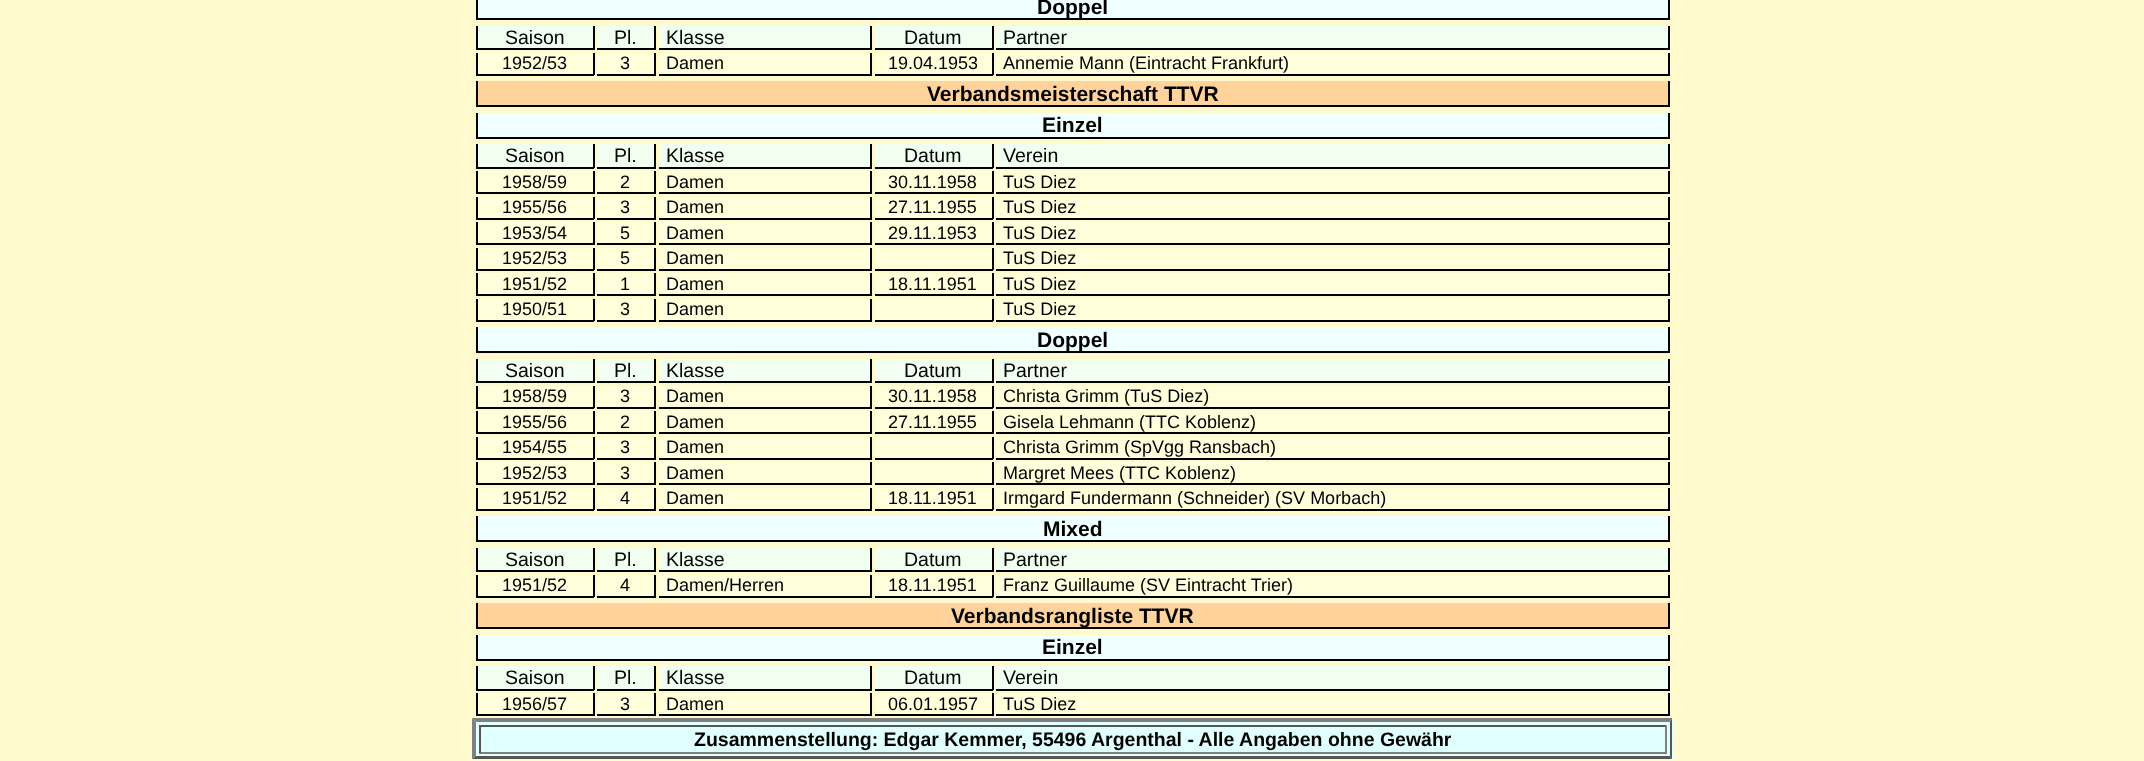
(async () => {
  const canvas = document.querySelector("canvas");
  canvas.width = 2144;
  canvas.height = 761;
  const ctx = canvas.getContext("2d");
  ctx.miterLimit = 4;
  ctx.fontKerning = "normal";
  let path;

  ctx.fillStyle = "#fffacd";
  ctx.fillRect(0, 0, 2144, 761);
  for (const [x, y, w, h, color] of [
    [478, 0, 1190, 18, "#f0ffff"],
    [1668, 0, 2, 20, "#000000"],
    [476, 18, 1194, 2, "#000000"],
    [476, 0, 2, 20, "#000000"],
    [478, 26, 115, 22, "#f0fff0"],
    [593, 26, 2, 24, "#000000"],
    [476, 48, 118, 2, "#000000"],
    [476, 26, 2, 24, "#000000"],
    [597, 26, 57, 22, "#f0fff0"],
    [654, 26, 2, 24, "#000000"],
    [597, 48, 59, 2, "#000000"],
    [659, 26, 211, 22, "#f0fff0"],
    [870, 26, 2, 24, "#000000"],
    [659, 48, 213, 2, "#000000"],
    [875, 26, 117, 22, "#f0fff0"],
    [992, 26, 2, 24, "#000000"],
    [875, 48, 118, 2, "#000000"],
    [996, 26, 672, 22, "#f0fff0"],
    [1668, 26, 2, 24, "#000000"],
    [996, 48, 674, 2, "#000000"],
    [478, 53, 115, 21, "#ffffdc"],
    [593, 53, 2, 22, "#000000"],
    [476, 74, 118, 2, "#000000"],
    [476, 53, 2, 22, "#000000"],
    [597, 53, 57, 21, "#ffffdc"],
    [654, 53, 2, 22, "#000000"],
    [597, 74, 59, 2, "#000000"],
    [659, 53, 211, 21, "#ffffdc"],
    [870, 53, 2, 22, "#000000"],
    [659, 74, 213, 2, "#000000"],
    [875, 53, 117, 21, "#ffffdc"],
    [992, 53, 2, 22, "#000000"],
    [875, 74, 118, 2, "#000000"],
    [996, 53, 672, 21, "#ffffdc"],
    [1668, 53, 2, 22, "#000000"],
    [996, 74, 674, 2, "#000000"],
    [478, 81, 1190, 24, "#ffd39b"],
    [1668, 81, 2, 26, "#000000"],
    [476, 105, 1194, 2, "#000000"],
    [476, 81, 2, 26, "#000000"],
    [478, 113, 1190, 24, "#f0ffff"],
    [1668, 113, 2, 25, "#000000"],
    [476, 137, 1194, 2, "#000000"],
    [476, 113, 2, 25, "#000000"],
    [478, 144, 115, 23, "#f0fff0"],
    [593, 144, 2, 24, "#000000"],
    [476, 167, 118, 2, "#000000"],
    [476, 144, 2, 24, "#000000"],
    [597, 144, 57, 23, "#f0fff0"],
    [654, 144, 2, 24, "#000000"],
    [597, 167, 59, 2, "#000000"],
    [659, 144, 211, 23, "#f0fff0"],
    [870, 144, 2, 24, "#000000"],
    [659, 167, 213, 2, "#000000"],
    [875, 144, 117, 23, "#f0fff0"],
    [992, 144, 2, 24, "#000000"],
    [875, 167, 118, 2, "#000000"],
    [996, 144, 672, 23, "#f0fff0"],
    [1668, 144, 2, 24, "#000000"],
    [996, 167, 674, 2, "#000000"],
    [478, 171, 115, 21, "#ffffdc"],
    [593, 171, 2, 23, "#000000"],
    [476, 192, 118, 2, "#000000"],
    [476, 171, 2, 23, "#000000"],
    [597, 171, 57, 21, "#ffffdc"],
    [654, 171, 2, 23, "#000000"],
    [597, 192, 59, 2, "#000000"],
    [659, 171, 211, 21, "#ffffdc"],
    [870, 171, 2, 23, "#000000"],
    [659, 192, 213, 2, "#000000"],
    [875, 171, 117, 21, "#ffffdc"],
    [992, 171, 2, 23, "#000000"],
    [875, 192, 118, 2, "#000000"],
    [996, 171, 672, 21, "#ffffdc"],
    [1668, 171, 2, 23, "#000000"],
    [996, 192, 674, 2, "#000000"],
    [478, 197, 115, 21, "#ffffdc"],
    [593, 197, 2, 22, "#000000"],
    [476, 218, 118, 2, "#000000"],
    [476, 197, 2, 22, "#000000"],
    [597, 197, 57, 21, "#ffffdc"],
    [654, 197, 2, 22, "#000000"],
    [597, 218, 59, 2, "#000000"],
    [659, 197, 211, 21, "#ffffdc"],
    [870, 197, 2, 22, "#000000"],
    [659, 218, 213, 2, "#000000"],
    [875, 197, 117, 21, "#ffffdc"],
    [992, 197, 2, 22, "#000000"],
    [875, 218, 118, 2, "#000000"],
    [996, 197, 672, 21, "#ffffdc"],
    [1668, 197, 2, 22, "#000000"],
    [996, 218, 674, 2, "#000000"],
    [478, 222, 115, 21, "#ffffdc"],
    [593, 222, 2, 23, "#000000"],
    [476, 243, 118, 2, "#000000"],
    [476, 222, 2, 23, "#000000"],
    [597, 222, 57, 21, "#ffffdc"],
    [654, 222, 2, 23, "#000000"],
    [597, 243, 59, 2, "#000000"],
    [659, 222, 211, 21, "#ffffdc"],
    [870, 222, 2, 23, "#000000"],
    [659, 243, 213, 2, "#000000"],
    [875, 222, 117, 21, "#ffffdc"],
    [992, 222, 2, 23, "#000000"],
    [875, 243, 118, 2, "#000000"],
    [996, 222, 672, 21, "#ffffdc"],
    [1668, 222, 2, 23, "#000000"],
    [996, 243, 674, 2, "#000000"],
    [478, 248, 115, 21, "#ffffdc"],
    [593, 248, 2, 22, "#000000"],
    [476, 269, 118, 2, "#000000"],
    [476, 248, 2, 22, "#000000"],
    [597, 248, 57, 21, "#ffffdc"],
    [654, 248, 2, 22, "#000000"],
    [597, 269, 59, 2, "#000000"],
    [659, 248, 211, 21, "#ffffdc"],
    [870, 248, 2, 22, "#000000"],
    [659, 269, 213, 2, "#000000"],
    [875, 248, 117, 21, "#ffffdc"],
    [992, 248, 2, 22, "#000000"],
    [875, 269, 118, 2, "#000000"],
    [996, 248, 672, 21, "#ffffdc"],
    [1668, 248, 2, 22, "#000000"],
    [996, 269, 674, 2, "#000000"],
    [478, 273, 115, 21, "#ffffdc"],
    [593, 273, 2, 23, "#000000"],
    [476, 294, 118, 2, "#000000"],
    [476, 273, 2, 23, "#000000"],
    [597, 273, 57, 21, "#ffffdc"],
    [654, 273, 2, 23, "#000000"],
    [597, 294, 59, 2, "#000000"],
    [659, 273, 211, 21, "#ffffdc"],
    [870, 273, 2, 23, "#000000"],
    [659, 294, 213, 2, "#000000"],
    [875, 273, 117, 21, "#ffffdc"],
    [992, 273, 2, 23, "#000000"],
    [875, 294, 118, 2, "#000000"],
    [996, 273, 672, 21, "#ffffdc"],
    [1668, 273, 2, 23, "#000000"],
    [996, 294, 674, 2, "#000000"],
    [478, 299, 115, 21, "#ffffdc"],
    [593, 299, 2, 22, "#000000"],
    [476, 320, 118, 2, "#000000"],
    [476, 299, 2, 22, "#000000"],
    [597, 299, 57, 21, "#ffffdc"],
    [654, 299, 2, 22, "#000000"],
    [597, 320, 59, 2, "#000000"],
    [659, 299, 211, 21, "#ffffdc"],
    [870, 299, 2, 22, "#000000"],
    [659, 320, 213, 2, "#000000"],
    [875, 299, 117, 21, "#ffffdc"],
    [992, 299, 2, 22, "#000000"],
    [875, 320, 118, 2, "#000000"],
    [996, 299, 672, 21, "#ffffdc"],
    [1668, 299, 2, 22, "#000000"],
    [996, 320, 674, 2, "#000000"],
    [478, 327, 1190, 24, "#f0ffff"],
    [1668, 327, 2, 26, "#000000"],
    [476, 351, 1194, 2, "#000000"],
    [476, 327, 2, 26, "#000000"],
    [478, 359, 115, 22, "#f0fff0"],
    [593, 359, 2, 24, "#000000"],
    [476, 381, 118, 2, "#000000"],
    [476, 359, 2, 24, "#000000"],
    [597, 359, 57, 22, "#f0fff0"],
    [654, 359, 2, 24, "#000000"],
    [597, 381, 59, 2, "#000000"],
    [659, 359, 211, 22, "#f0fff0"],
    [870, 359, 2, 24, "#000000"],
    [659, 381, 213, 2, "#000000"],
    [875, 359, 117, 22, "#f0fff0"],
    [992, 359, 2, 24, "#000000"],
    [875, 381, 118, 2, "#000000"],
    [996, 359, 672, 22, "#f0fff0"],
    [1668, 359, 2, 24, "#000000"],
    [996, 381, 674, 2, "#000000"],
    [478, 386, 115, 21, "#ffffdc"],
    [593, 386, 2, 22, "#000000"],
    [476, 407, 118, 2, "#000000"],
    [476, 386, 2, 22, "#000000"],
    [597, 386, 57, 21, "#ffffdc"],
    [654, 386, 2, 22, "#000000"],
    [597, 407, 59, 2, "#000000"],
    [659, 386, 211, 21, "#ffffdc"],
    [870, 386, 2, 22, "#000000"],
    [659, 407, 213, 2, "#000000"],
    [875, 386, 117, 21, "#ffffdc"],
    [992, 386, 2, 22, "#000000"],
    [875, 407, 118, 2, "#000000"],
    [996, 386, 672, 21, "#ffffdc"],
    [1668, 386, 2, 22, "#000000"],
    [996, 407, 674, 2, "#000000"],
    [478, 411, 115, 21, "#ffffdc"],
    [593, 411, 2, 23, "#000000"],
    [476, 432, 118, 2, "#000000"],
    [476, 411, 2, 23, "#000000"],
    [597, 411, 57, 21, "#ffffdc"],
    [654, 411, 2, 23, "#000000"],
    [597, 432, 59, 2, "#000000"],
    [659, 411, 211, 21, "#ffffdc"],
    [870, 411, 2, 23, "#000000"],
    [659, 432, 213, 2, "#000000"],
    [875, 411, 117, 21, "#ffffdc"],
    [992, 411, 2, 23, "#000000"],
    [875, 432, 118, 2, "#000000"],
    [996, 411, 672, 21, "#ffffdc"],
    [1668, 411, 2, 23, "#000000"],
    [996, 432, 674, 2, "#000000"],
    [478, 437, 115, 21, "#ffffdc"],
    [593, 437, 2, 22, "#000000"],
    [476, 458, 118, 2, "#000000"],
    [476, 437, 2, 22, "#000000"],
    [597, 437, 57, 21, "#ffffdc"],
    [654, 437, 2, 22, "#000000"],
    [597, 458, 59, 2, "#000000"],
    [659, 437, 211, 21, "#ffffdc"],
    [870, 437, 2, 22, "#000000"],
    [659, 458, 213, 2, "#000000"],
    [875, 437, 117, 21, "#ffffdc"],
    [992, 437, 2, 22, "#000000"],
    [875, 458, 118, 2, "#000000"],
    [996, 437, 672, 21, "#ffffdc"],
    [1668, 437, 2, 22, "#000000"],
    [996, 458, 674, 2, "#000000"],
    [478, 462, 115, 21, "#ffffdc"],
    [593, 462, 2, 23, "#000000"],
    [476, 483, 118, 2, "#000000"],
    [476, 462, 2, 23, "#000000"],
    [597, 462, 57, 21, "#ffffdc"],
    [654, 462, 2, 23, "#000000"],
    [597, 483, 59, 2, "#000000"],
    [659, 462, 211, 21, "#ffffdc"],
    [870, 462, 2, 23, "#000000"],
    [659, 483, 213, 2, "#000000"],
    [875, 462, 117, 21, "#ffffdc"],
    [992, 462, 2, 23, "#000000"],
    [875, 483, 118, 2, "#000000"],
    [996, 462, 672, 21, "#ffffdc"],
    [1668, 462, 2, 23, "#000000"],
    [996, 483, 674, 2, "#000000"],
    [478, 488, 115, 21, "#ffffdc"],
    [593, 488, 2, 22, "#000000"],
    [476, 509, 118, 2, "#000000"],
    [476, 488, 2, 22, "#000000"],
    [597, 488, 57, 21, "#ffffdc"],
    [654, 488, 2, 22, "#000000"],
    [597, 509, 59, 2, "#000000"],
    [659, 488, 211, 21, "#ffffdc"],
    [870, 488, 2, 22, "#000000"],
    [659, 509, 213, 2, "#000000"],
    [875, 488, 117, 21, "#ffffdc"],
    [992, 488, 2, 22, "#000000"],
    [875, 509, 118, 2, "#000000"],
    [996, 488, 672, 21, "#ffffdc"],
    [1668, 488, 2, 22, "#000000"],
    [996, 509, 674, 2, "#000000"],
    [478, 516, 1190, 24, "#f0ffff"],
    [1668, 516, 2, 26, "#000000"],
    [476, 540, 1194, 2, "#000000"],
    [476, 516, 2, 26, "#000000"],
    [478, 548, 115, 22, "#f0fff0"],
    [593, 548, 2, 24, "#000000"],
    [476, 570, 118, 2, "#000000"],
    [476, 548, 2, 24, "#000000"],
    [597, 548, 57, 22, "#f0fff0"],
    [654, 548, 2, 24, "#000000"],
    [597, 570, 59, 2, "#000000"],
    [659, 548, 211, 22, "#f0fff0"],
    [870, 548, 2, 24, "#000000"],
    [659, 570, 213, 2, "#000000"],
    [875, 548, 117, 22, "#f0fff0"],
    [992, 548, 2, 24, "#000000"],
    [875, 570, 118, 2, "#000000"],
    [996, 548, 672, 22, "#f0fff0"],
    [1668, 548, 2, 24, "#000000"],
    [996, 570, 674, 2, "#000000"],
    [478, 575, 115, 21, "#ffffdc"],
    [593, 575, 2, 22, "#000000"],
    [476, 596, 118, 2, "#000000"],
    [476, 575, 2, 22, "#000000"],
    [597, 575, 57, 21, "#ffffdc"],
    [654, 575, 2, 22, "#000000"],
    [597, 596, 59, 2, "#000000"],
    [659, 575, 211, 21, "#ffffdc"],
    [870, 575, 2, 22, "#000000"],
    [659, 596, 213, 2, "#000000"],
    [875, 575, 117, 21, "#ffffdc"],
    [992, 575, 2, 22, "#000000"],
    [875, 596, 118, 2, "#000000"],
    [996, 575, 672, 21, "#ffffdc"],
    [1668, 575, 2, 22, "#000000"],
    [996, 596, 674, 2, "#000000"],
    [478, 603, 1190, 24, "#ffd39b"],
    [1668, 603, 2, 26, "#000000"],
    [476, 627, 1194, 2, "#000000"],
    [476, 603, 2, 26, "#000000"],
    [478, 635, 1190, 24, "#f0ffff"],
    [1668, 635, 2, 25, "#000000"],
    [476, 659, 1194, 2, "#000000"],
    [476, 635, 2, 25, "#000000"],
    [478, 666, 115, 23, "#f0fff0"],
    [593, 666, 2, 24, "#000000"],
    [476, 689, 118, 2, "#000000"],
    [476, 666, 2, 24, "#000000"],
    [597, 666, 57, 23, "#f0fff0"],
    [654, 666, 2, 24, "#000000"],
    [597, 689, 59, 2, "#000000"],
    [659, 666, 211, 23, "#f0fff0"],
    [870, 666, 2, 24, "#000000"],
    [659, 689, 213, 2, "#000000"],
    [875, 666, 117, 23, "#f0fff0"],
    [992, 666, 2, 24, "#000000"],
    [875, 689, 118, 2, "#000000"],
    [996, 666, 672, 23, "#f0fff0"],
    [1668, 666, 2, 24, "#000000"],
    [996, 689, 674, 2, "#000000"],
    [478, 693, 115, 21, "#ffffdc"],
    [593, 693, 2, 23, "#000000"],
    [476, 714, 118, 2, "#000000"],
    [476, 693, 2, 23, "#000000"],
    [597, 693, 57, 21, "#ffffdc"],
    [654, 693, 2, 23, "#000000"],
    [597, 714, 59, 2, "#000000"],
    [659, 693, 211, 21, "#ffffdc"],
    [870, 693, 2, 23, "#000000"],
    [659, 714, 213, 2, "#000000"],
    [875, 693, 117, 21, "#ffffdc"],
    [992, 693, 2, 23, "#000000"],
    [875, 714, 118, 2, "#000000"],
    [996, 693, 672, 21, "#ffffdc"],
    [1668, 693, 2, 23, "#000000"],
    [996, 714, 674, 2, "#000000"],
    [473, 719, 1200, 40, "#e0ffff"],
  ]) {
    ctx.fillStyle = color;
    ctx.fillRect(x, y, w, h);
  }
  ctx.fillStyle = "#808080";
  path = new Path2D("M472 718H1672L1670 722H476Z");
  ctx.fill(path);
  ctx.fillStyle = "#555555";
  path = new Path2D("M1672 718V759L1670 756V722Z");
  ctx.fill(path);
  path = new Path2D("M1672 759H472L476 756H1670Z");
  ctx.fill(path);
  ctx.fillStyle = "#808080";
  path = new Path2D("M472 759V718L476 722V756Z");
  ctx.fill(path);
  for (const [x, y, w, h, color] of [
    [479, 725, 1188, 2, "#555555"],
    [1665, 725, 2, 28, "#808080"],
    [479, 752, 1188, 2, "#808080"],
    [479, 725, 2, 28, "#555555"],
  ]) {
    ctx.fillStyle = color;
    ctx.fillRect(x, y, w, h);
  }
  ctx.font = "bold 21px Liberation Sans";
  ctx.fillStyle = "#000000";
  ctx.fillText("Doppel", 1037, 14);
  ctx.font = "19.5px Liberation Sans";
  for (const [text, x, y] of [
    ["Saison", 505, 44],
    ["Pl.", 614, 44],
    ["Klasse", 666, 44],
    ["Datum", 904, 44],
    ["Partner", 1003, 44],
  ]) {
    ctx.fillText(text, x, y);
  }
  ctx.font = "18px Liberation Sans";
  for (const [text, x, y] of [
    ["1952/53", 502, 69],
    ["3", 620, 69],
    ["Damen", 666, 69],
    ["19.04.1953", 888, 69],
    ["Annemie Mann (Eintracht Frankfurt)", 1003, 69],
  ]) {
    ctx.fillText(text, x, y);
  }
  ctx.font = "bold 21px Liberation Sans";
  ctx.fillText("Verbandsmeisterschaft TTVR", 927, 101);
  ctx.fillText("Einzel", 1042, 132);
  ctx.font = "19.5px Liberation Sans";
  for (const [text, x, y] of [
    ["Saison", 505, 162],
    ["Pl.", 614, 162],
    ["Klasse", 666, 162],
    ["Datum", 904, 162],
    ["Verein", 1003, 162],
  ]) {
    ctx.fillText(text, x, y);
  }
  ctx.font = "18px Liberation Sans";
  for (const [text, x, y] of [
    ["1958/59", 502, 188],
    ["2", 620, 188],
    ["Damen", 666, 188],
    ["30.11.1958", 888, 188],
    ["TuS Diez", 1003, 188],
    ["1955/56", 502, 213],
    ["3", 620, 213],
    ["Damen", 666, 213],
    ["27.11.1955", 888, 213],
    ["TuS Diez", 1003, 213],
    ["1953/54", 502, 239],
    ["5", 620, 239],
    ["Damen", 666, 239],
    ["29.11.1953", 888, 239],
    ["TuS Diez", 1003, 239],
    ["1952/53", 502, 264],
    ["5", 620, 264],
    ["Damen", 666, 264],
    ["TuS Diez", 1003, 264],
    ["1951/52", 502, 290],
    ["1", 620, 290],
    ["Damen", 666, 290],
    ["18.11.1951", 888, 290],
    ["TuS Diez", 1003, 290],
    ["1950/51", 502, 315],
    ["3", 620, 315],
    ["Damen", 666, 315],
    ["TuS Diez", 1003, 315],
  ]) {
    ctx.fillText(text, x, y);
  }
  ctx.font = "bold 21px Liberation Sans";
  ctx.fillText("Doppel", 1037, 347);
  ctx.font = "19.5px Liberation Sans";
  for (const [text, x, y] of [
    ["Saison", 505, 377],
    ["Pl.", 614, 377],
    ["Klasse", 666, 377],
    ["Datum", 904, 377],
    ["Partner", 1003, 377],
  ]) {
    ctx.fillText(text, x, y);
  }
  ctx.font = "18px Liberation Sans";
  for (const [text, x, y] of [
    ["1958/59", 502, 402],
    ["3", 620, 402],
    ["Damen", 666, 402],
    ["30.11.1958", 888, 402],
    ["Christa Grimm (TuS Diez)", 1003, 402],
    ["1955/56", 502, 428],
    ["2", 620, 428],
    ["Damen", 666, 428],
    ["27.11.1955", 888, 428],
    ["Gisela Lehmann (TTC Koblenz)", 1003, 428],
    ["1954/55", 502, 453],
    ["3", 620, 453],
    ["Damen", 666, 453],
    ["Christa Grimm (SpVgg Ransbach)", 1003, 453],
    ["1952/53", 502, 479],
    ["3", 620, 479],
    ["Damen", 666, 479],
    ["Margret Mees (TTC Koblenz)", 1003, 479],
    ["1951/52", 502, 504],
    ["4", 620, 504],
    ["Damen", 666, 504],
    ["18.11.1951", 888, 504],
    ["Irmgard Fundermann (Schneider) (SV Morbach)", 1003, 504],
  ]) {
    ctx.fillText(text, x, y);
  }
  ctx.font = "bold 21px Liberation Sans";
  ctx.fillText("Mixed", 1043, 536);
  ctx.font = "19.5px Liberation Sans";
  for (const [text, x, y] of [
    ["Saison", 505, 566],
    ["Pl.", 614, 566],
    ["Klasse", 666, 566],
    ["Datum", 904, 566],
    ["Partner", 1003, 566],
  ]) {
    ctx.fillText(text, x, y);
  }
  ctx.font = "18px Liberation Sans";
  for (const [text, x, y] of [
    ["1951/52", 502, 591],
    ["4", 620, 591],
    ["Damen/Herren", 666, 591],
    ["18.11.1951", 888, 591],
    ["Franz Guillaume (SV Eintracht Trier)", 1003, 591],
  ]) {
    ctx.fillText(text, x, y);
  }
  ctx.font = "bold 21px Liberation Sans";
  ctx.fillText("Verbandsrangliste TTVR", 951, 623);
  ctx.fillText("Einzel", 1042, 654);
  ctx.font = "19.5px Liberation Sans";
  for (const [text, x, y] of [
    ["Saison", 505, 684],
    ["Pl.", 614, 684],
    ["Klasse", 666, 684],
    ["Datum", 904, 684],
    ["Verein", 1003, 684],
  ]) {
    ctx.fillText(text, x, y);
  }
  ctx.font = "18px Liberation Sans";
  for (const [text, x, y] of [
    ["1956/57", 502, 710],
    ["3", 620, 710],
    ["Damen", 666, 710],
    ["06.01.1957", 888, 710],
    ["TuS Diez", 1003, 710],
  ]) {
    ctx.fillText(text, x, y);
  }
  ctx.font = "bold 19.5px Liberation Sans";
  ctx.fillText("Zusammenstellung: Edgar Kemmer, 55496 Argenthal - Alle Angaben ohne Gewähr", 694, 746);
})();
